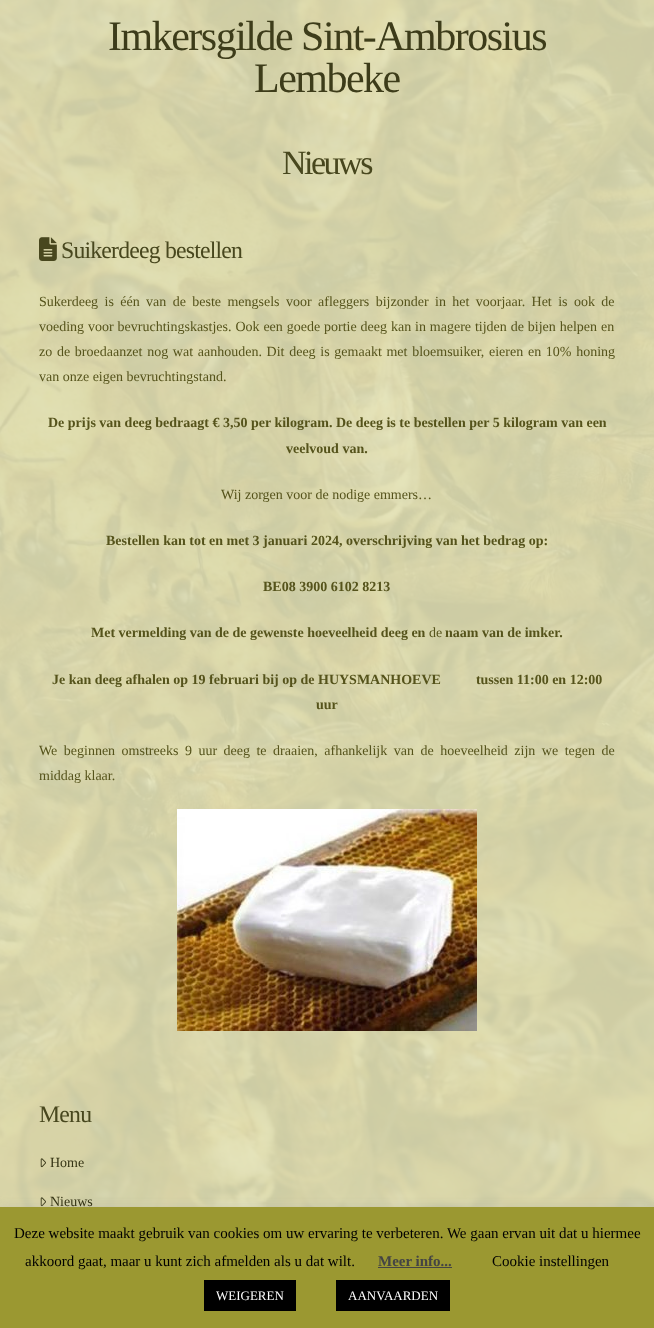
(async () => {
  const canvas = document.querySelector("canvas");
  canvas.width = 654;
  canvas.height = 1328;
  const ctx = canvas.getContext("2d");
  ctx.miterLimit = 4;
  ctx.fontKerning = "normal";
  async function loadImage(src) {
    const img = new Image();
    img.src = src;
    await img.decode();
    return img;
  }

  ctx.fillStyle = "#ffffff";
  ctx.fillRect(0, 0, 654, 1328);
  ctx.drawImage(await loadImage("img/1.png"), 0, 0, 654, 1207);
  ctx.drawImage(await loadImage("img/2.png"), 39, 237, 18, 24);
  ctx.drawImage(await loadImage("img/3.png"), 177, 809, 300, 222);
  ctx.drawImage(await loadImage("img/4.png"), 40, 1158, 6, 10);
  ctx.drawImage(await loadImage("img/5.png"), 40, 1197, 6, 10);
  ctx.fillStyle = "rgba(172, 171, 171, 0.3)";
  ctx.filter = "blur(5px)";
  ctx.beginPath();
  ctx.rect(0, 1206, 654, 121);
  ctx.fill();
  ctx.filter = "none";
  for (const [x, y, w, h, color] of [
    [0, 1207, 654, 121, "#9b9831"],
    [378, 1267, 74, 1, "#444444"],
    [204, 1280, 92, 31, "#000000"],
    [336, 1280, 114, 31, "#000000"],
  ]) {
    ctx.fillStyle = color;
    ctx.fillRect(x, y, w, h);
  }
  ctx.letterSpacing = "-1.5px";
  ctx.font = "42px Liberation Serif";
  ctx.fillStyle = "#3d3c1a";
  ctx.fillText("Imkersgilde Sint-Ambrosius", 108, 50);
  ctx.fillText("Lembeke", 254, 92);
  ctx.letterSpacing = "-2.5px";
  ctx.font = "34px Liberation Serif";
  ctx.fillStyle = "#48471e";
  ctx.fillText("Nieuws", 282, 174);
  ctx.letterSpacing = "-0.8px";
  ctx.font = "23.75px Liberation Serif";
  ctx.fillText("Suikerdeeg bestellen", 61, 258);
  ctx.letterSpacing = "0px";
  ctx.wordSpacing = "2.9px";
  ctx.font = "14px Liberation Serif";
  ctx.fillStyle = "#55531b";
  ctx.fillText("Sukerdeeg is één van de beste mengsels voor afleggers bijzonder in het voorjaar. Het is ook de", 39, 306);
  ctx.wordSpacing = "0.4px";
  ctx.fillText("voeding voor bevruchtingskastjes. Ook een goede portie deeg kan in magere tijden de bijen helpen en", 39, 331);
  ctx.wordSpacing = "1.2px";
  ctx.fillText("zo de broedaanzet nog wat aanhouden. Dit deeg is gemaakt met bloemsuiker, eieren en 10% honing", 39, 356);
  ctx.wordSpacing = "0px";
  ctx.fillText("van onze eigen bevruchtingstand.", 39, 381);
  ctx.font = "bold 14px Liberation Serif";
  ctx.fillText("De prijs van deeg bedraagt € 3,50 per kilogram. De deeg is te bestellen per 5 kilogram van een", 48, 427);
  ctx.fillText("veelvoud van.", 286, 453);
  ctx.font = "14px Liberation Serif";
  ctx.fillText("Wij zorgen voor de nodige emmers…", 221, 499);
  ctx.font = "bold 14px Liberation Serif";
  for (const [text, x, y] of [
    ["Bestellen kan tot en met 3 januari 2024, overschrijving van het bedrag op:", 106, 545],
    ["BE08 3900 6102 8213", 263, 591],
    ["Met vermelding van de de gewenste hoeveelheid deeg en", 91, 637],
  ]) {
    ctx.fillText(text, x, y);
  }
  ctx.font = "14px Liberation Serif";
  ctx.fillText("de", 429, 637);
  ctx.font = "bold 14px Liberation Serif";
  for (const [text, x, y] of [
    ["naam van de imker.", 445, 637],
    ["Je kan deeg afhalen op 19 februari bij op de HUYSMANHOEVE          tussen 11:00 en 12:00", 52, 684],
    ["uur", 316, 709],
  ]) {
    ctx.fillText(text, x, y);
  }
  ctx.wordSpacing = "3px";
  ctx.font = "14px Liberation Serif";
  ctx.fillText("We beginnen omstreeks 9 uur deeg te draaien, afhankelijk van de hoeveelheid zijn we tegen de", 39, 755);
  ctx.wordSpacing = "0px";
  ctx.fillText("middag klaar.", 39, 780);
  ctx.letterSpacing = "-0.8px";
  ctx.font = "23.75px Liberation Serif";
  ctx.fillStyle = "#48471e";
  ctx.fillText("Menu", 39, 1122);
  ctx.letterSpacing = "0px";
  ctx.font = "14px Liberation Serif";
  ctx.fillStyle = "#343314";
  ctx.fillText("Home", 50, 1167);
  ctx.fillText("Nieuws", 50, 1206);
  ctx.font = "15px Liberation Serif";
  ctx.fillStyle = "#000000";
  ctx.fillText("Deze website maakt gebruik van cookies om uw ervaring te verbeteren. We gaan ervan uit dat u hiermee", 14, 1238);
  ctx.fillText("akkoord gaat, maar u kunt zich afmelden als u dat wilt.", 25, 1266);
  ctx.font = "bold 15px Liberation Serif";
  ctx.fillStyle = "#444444";
  ctx.fillText("Meer info...", 378, 1266);
  ctx.font = "15px Liberation Serif";
  ctx.fillStyle = "#000000";
  ctx.fillText("Cookie instellingen", 492, 1266);
  ctx.font = "13px Liberation Serif";
  ctx.fillStyle = "#ffffff";
  ctx.fillText("WEIGEREN", 216, 1300);
  ctx.fillText("AANVAARDEN", 348, 1300);
})();
